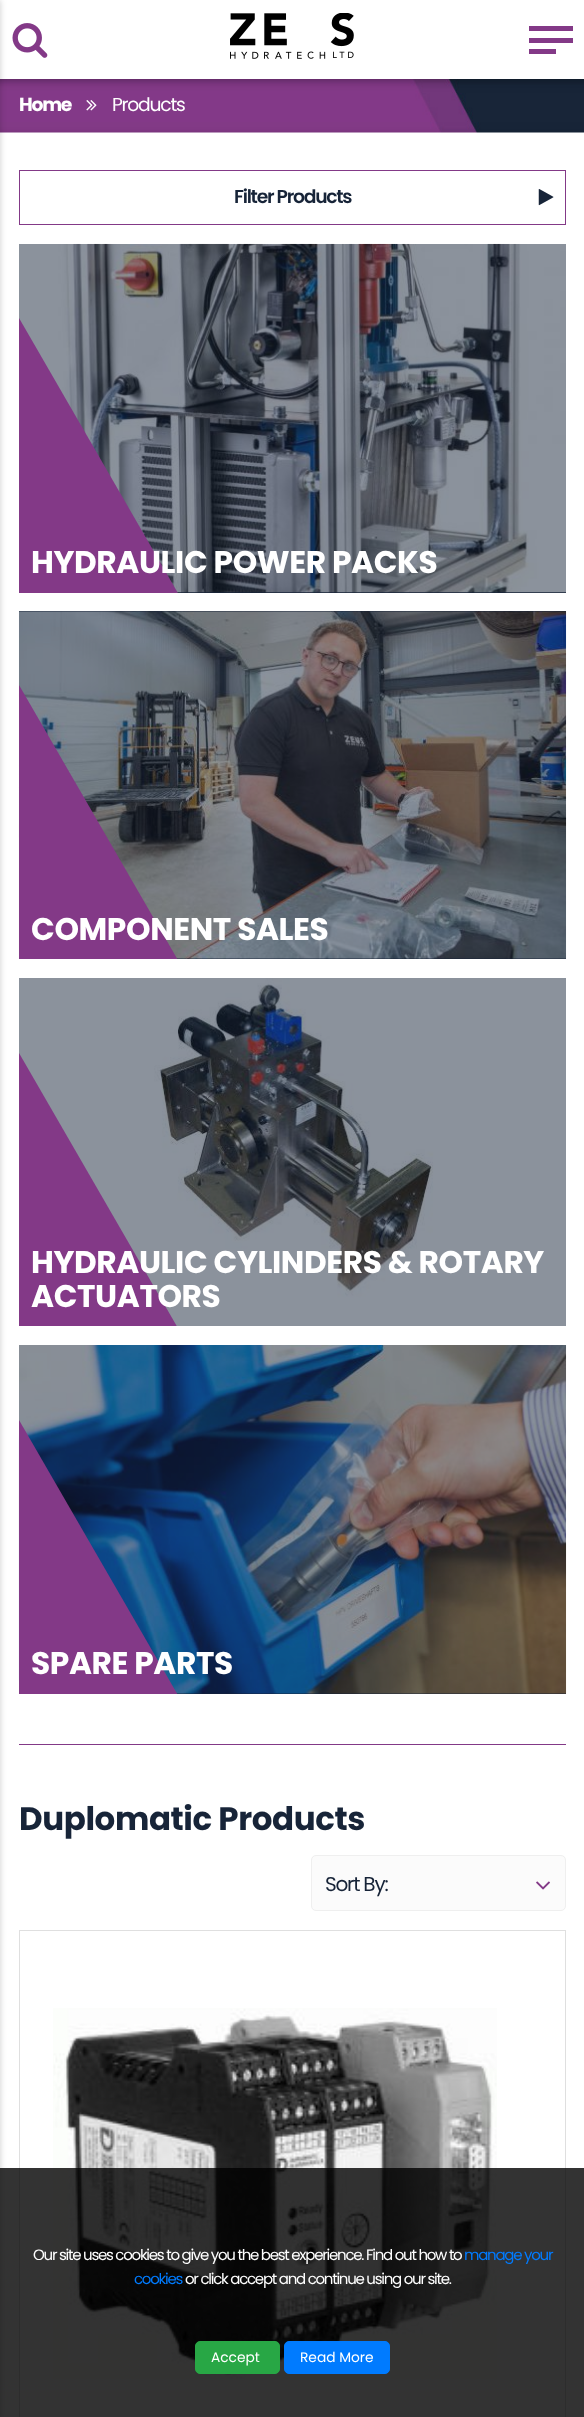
(async () => {
  const canvas = document.querySelector("canvas");
  canvas.width = 584;
  canvas.height = 2417;
  const ctx = canvas.getContext("2d");
  ctx.miterLimit = 4;
  ctx.fontKerning = "normal";
  async function loadImage(src) {
    const img = new Image();
    img.src = src;
    await img.decode();
    return img;
  }
  let path;

  ctx.fillStyle = "#ffffff";
  ctx.fillRect(0, 0, 584, 2417);
  ctx.drawImage(await loadImage("img/1.png"), 12, 23, 36, 35);
  ctx.drawImage(await loadImage("img/2.png"), 230, 13, 124, 46);
  for (const [x, y, w, h, color] of [
    [529, 26, 44, 5, "#833987"],
    [529, 38, 44, 5, "#833987"],
    [529, 49, 27, 5, "#833987"],
  ]) {
    ctx.fillStyle = color;
    ctx.fillRect(x, y, w, h);
  }
  ctx.drawImage(await loadImage("img/3.png"), 0, 79, 584, 54);
  ctx.drawImage(await loadImage("img/4.png"), 86, 100, 11, 11);
  ctx.fillStyle = "rgba(0, 0, 0, 0.2)";
  ctx.filter = "blur(3px)";
  ctx.beginPath();
  ctx.rect(-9, 0, 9, 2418);
  ctx.fill();
  ctx.filter = "none";
  ctx.strokeStyle = "#833987";
  ctx.strokeRect(19.5, 170.5, 546, 54);
  ctx.drawImage(await loadImage("img/5.png"), 538, 189, 16, 17);
  ctx.fillStyle = "#172438";
  ctx.fillRect(19, 244, 547, 349);
  ctx.drawImage(await loadImage("img/6.png"), 19, 243, 547, 350);
  ctx.save();
  ctx.beginPath();
  ctx.rect(19, 244, 547, 349);
  ctx.clip();
  ctx.fillStyle = "#833987";
  path = new Path2D("M-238 306H12L301 806H51Z");
  ctx.fill(path);
  ctx.restore();
  ctx.fillRect(19, 611, 547, 348);
  ctx.drawImage(await loadImage("img/7.png"), 18, 611, 549, 348);
  ctx.save();
  ctx.beginPath();
  ctx.rect(19, 611, 547, 348);
  ctx.clip();
  ctx.fillStyle = "#833987";
  path = new Path2D("M-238 673H12L301 1173H51Z");
  ctx.fill(path);
  ctx.restore();
  ctx.fillRect(19, 978, 547, 348);
  ctx.drawImage(await loadImage("img/8.png"), 19, 978, 547, 348);
  ctx.save();
  ctx.beginPath();
  ctx.rect(19, 978, 547, 348);
  ctx.clip();
  ctx.fillStyle = "#833987";
  path = new Path2D("M-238 1041H12L301 1541H51Z");
  ctx.fill(path);
  ctx.restore();
  ctx.fillRect(19, 1345, 547, 349);
  ctx.drawImage(await loadImage("img/9.png"), 18, 1345, 549, 349);
  ctx.save();
  ctx.beginPath();
  ctx.rect(19, 1345, 547, 349);
  ctx.clip();
  ctx.fillStyle = "#833987";
  path = new Path2D("M-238 1408H12L301 1908H51Z");
  ctx.fill(path);
  ctx.restore();
  ctx.fillStyle = "#833987";
  ctx.fillRect(19, 1744, 547, 1);
  ctx.fillStyle = "#fbfbfb";
  ctx.beginPath();
  ctx.roundRect(311.5, 1855.5, 254, 55, 4.5);
  ctx.fill();
  ctx.strokeStyle = "#efefef";
  ctx.stroke();
  ctx.drawImage(await loadImage("img/10.png"), 536, 1881, 14, 9);
  ctx.strokeStyle = "#dfdfdf";
  ctx.strokeRect(19.5, 1930.5, 546, 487);
  ctx.drawImage(await loadImage("img/11.png"), 53, 2008, 444, 371);
  ctx.fillStyle = "rgba(0, 0, 0, 0.8)";
  ctx.fillRect(0, 2168, 584, 249);
  ctx.fillStyle = "#28a745";
  ctx.beginPath();
  ctx.roundRect(195.5, 2341.5, 84, 32, 4.5);
  ctx.fill();
  ctx.strokeStyle = "#28a745";
  ctx.stroke();
  ctx.fillStyle = "#007bff";
  ctx.beginPath();
  ctx.roundRect(284.5, 2341.5, 105, 32, 4.5);
  ctx.fill();
  ctx.strokeStyle = "#007bff";
  ctx.stroke();
  ctx.letterSpacing = "-1.25px";
  ctx.font = "bold 18.75px Poppins";
  ctx.fillStyle = "#ffffff";
  ctx.fillText("Home", 19, 111);
  ctx.font = "18.75px Poppins";
  ctx.fillText("Products", 112, 111);
  ctx.font = "600 18.75px Poppins";
  ctx.fillStyle = "#172438";
  ctx.fillText("Filter Products", 234, 203);
  ctx.letterSpacing = "-0.4px";
  ctx.font = "bold 31.25px Poppins";
  ctx.fillStyle = "#ffffff";
  for (const [text, x, y] of [
    ["HYDRAULIC POWER PACKS", 31, 573],
    ["COMPONENT SALES", 31, 940],
    ["HYDRAULIC CYLINDERS & ROTARY", 31, 1273],
    ["ACTUATORS", 31, 1307],
    ["SPARE PARTS", 31, 1674],
  ]) {
    ctx.fillText(text, x, y);
  }
  ctx.font = "bold 32.5px Poppins";
  ctx.fillStyle = "#172438";
  ctx.fillText("Duplomatic Products", 19, 1830);
  ctx.letterSpacing = "-1.25px";
  ctx.font = "20px Poppins";
  ctx.fillText("Sort By:", 325, 1891);
  ctx.font = "15px Poppins";
  ctx.fillStyle = "#ffffff";
  ctx.fillText("Our site uses cookies to give you the best experience. Find out how to", 33, 2260);
  ctx.fillStyle = "#007bff";
  ctx.fillText("manage your", 464, 2260);
  ctx.fillText("cookies", 134, 2284);
  ctx.fillStyle = "#ffffff";
  ctx.fillText("or click accept and continue using our site.", 185, 2284);
  ctx.letterSpacing = "0px";
  ctx.font = "13.75px Poppins";
  ctx.fillText("Accept", 211, 2362);
  ctx.fillText("Read More", 300, 2362);
})();
